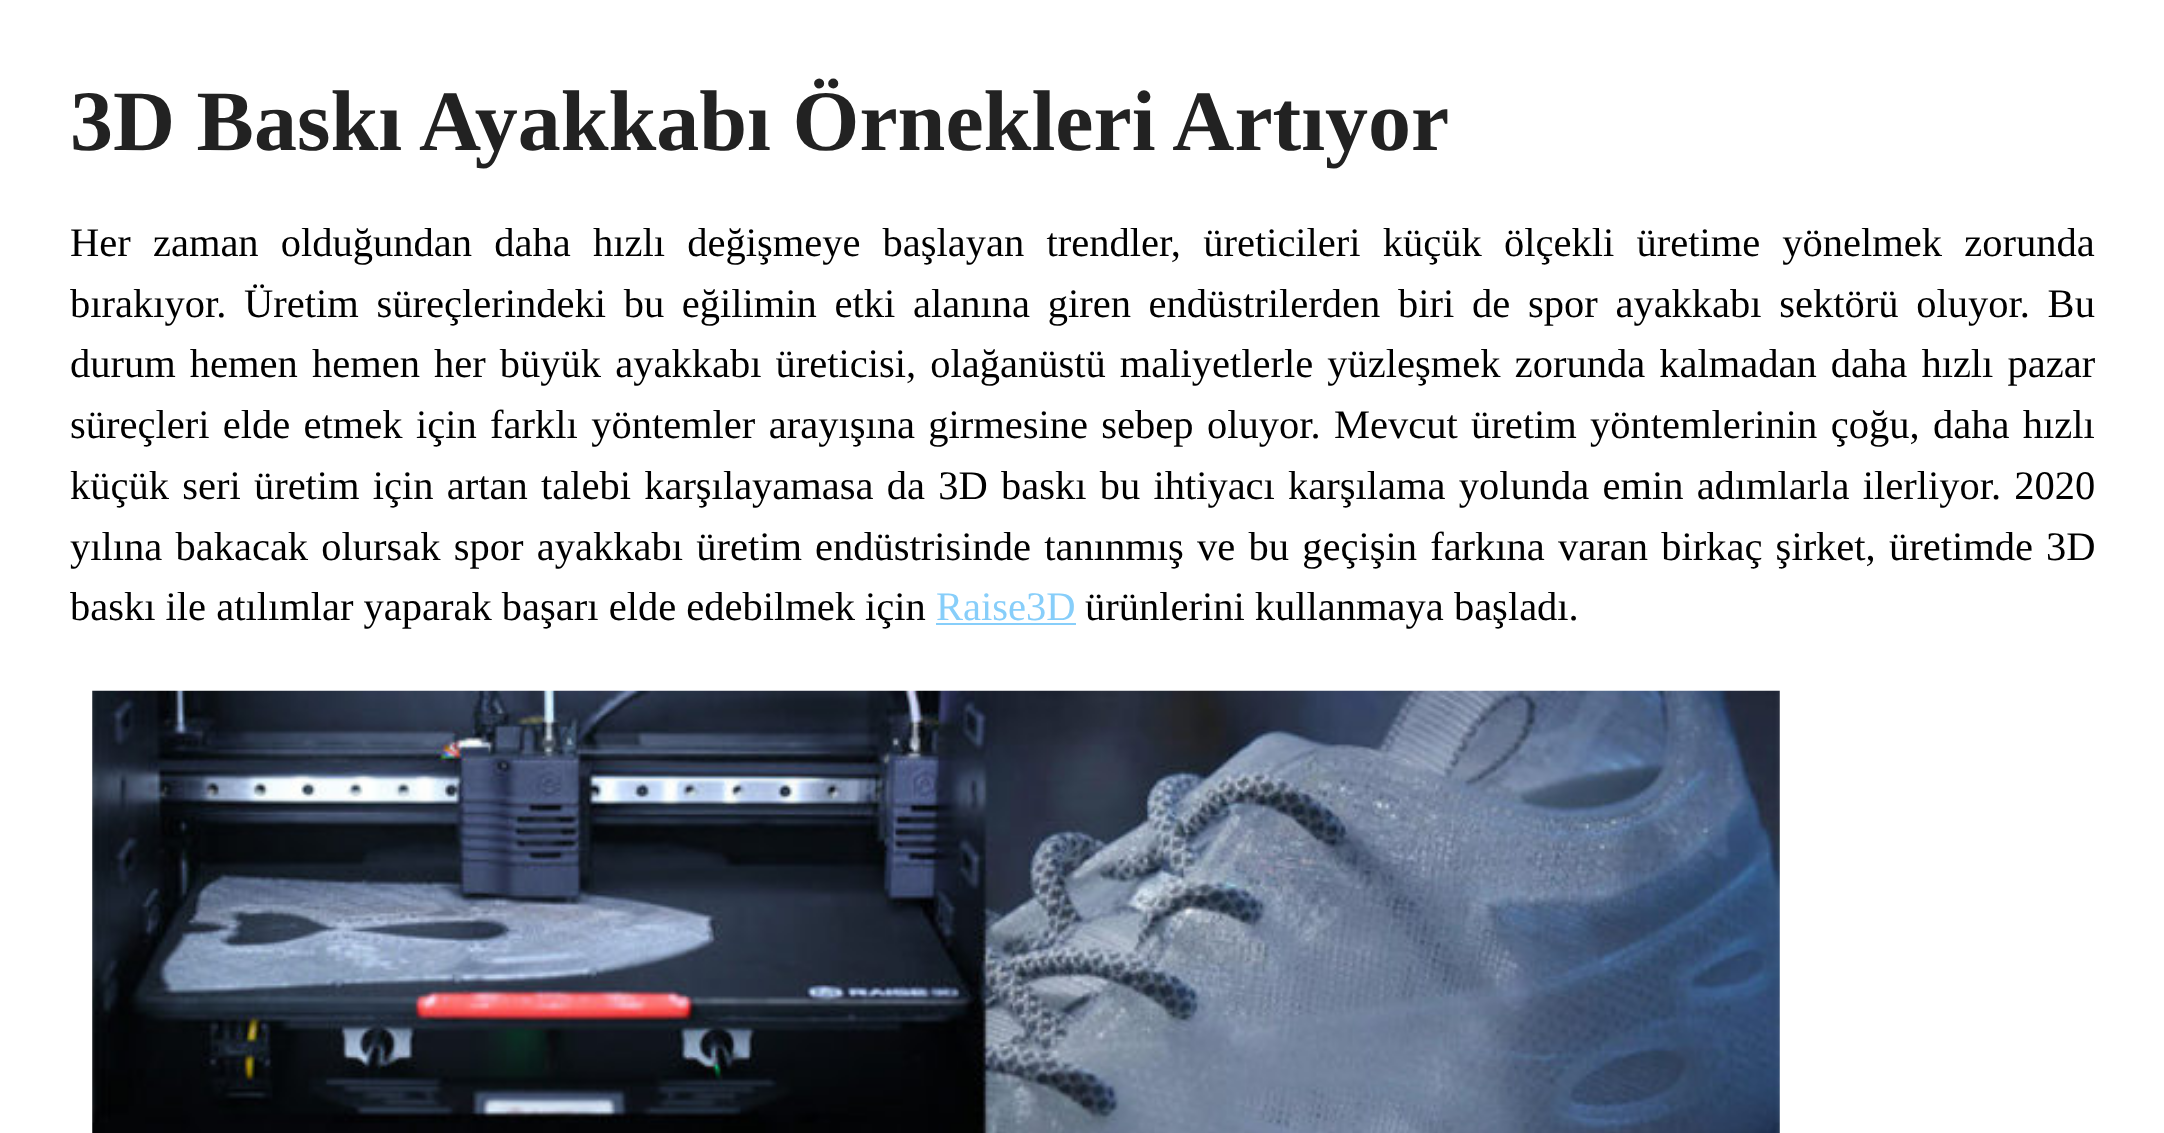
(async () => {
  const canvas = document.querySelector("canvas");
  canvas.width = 2164;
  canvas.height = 1133;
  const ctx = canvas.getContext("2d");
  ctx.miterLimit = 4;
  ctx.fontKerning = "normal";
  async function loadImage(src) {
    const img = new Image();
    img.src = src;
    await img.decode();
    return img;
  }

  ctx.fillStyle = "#ffffff";
  ctx.fillRect(0, 0, 2164, 1133);
  ctx.fillStyle = "#87cefa";
  ctx.fillRect(936, 623, 140, 2);
  ctx.drawImage(await loadImage("img/1.png"), 92, 690, 1688, 443);
  ctx.font = "bold 86px Liberation Serif";
  ctx.fillStyle = "#222222";
  ctx.fillText("3D Baskı Ayakkabı Örnekleri Artıyor", 70, 150);
  ctx.wordSpacing = "12.1px";
  ctx.font = "40.5px Liberation Serif";
  ctx.fillStyle = "#000000";
  ctx.fillText("Her zaman olduğundan daha hızlı değişmeye başlayan trendler, üreticileri küçük ölçekli üretime yönelmek zorunda", 70, 256);
  ctx.wordSpacing = "7.6px";
  ctx.fillText("bırakıyor. Üretim süreçlerindeki bu eğilimin etki alanına giren endüstrilerden biri de spor ayakkabı sektörü oluyor. Bu", 70, 317);
  ctx.wordSpacing = "4px";
  ctx.fillText("durum hemen hemen her büyük ayakkabı üreticisi, olağanüstü maliyetlerle yüzleşmek zorunda kalmadan daha hızlı pazar", 70, 377);
  ctx.wordSpacing = "3.25px";
  ctx.fillText("süreçleri elde etmek için farklı yöntemler arayışına girmesine sebep oluyor. Mevcut üretim yöntemlerinin çoğu, daha hızlı", 70, 438);
  ctx.wordSpacing = "3.1px";
  ctx.fillText("küçük seri üretim için artan talebi karşılayamasa da 3D baskı bu ihtiyacı karşılama yolunda emin adımlarla ilerliyor. 2020", 70, 499);
  ctx.fillText("yılına bakacak olursak spor ayakkabı üretim endüstrisinde tanınmış ve bu geçişin farkına varan birkaç şirket, üretimde 3D", 70, 560);
  ctx.wordSpacing = "0px";
  ctx.fillText("baskı ile atılımlar yaparak başarı elde edebilmek için", 70, 620);
  ctx.fillStyle = "#87cefa";
  ctx.fillText("Raise3D", 936, 620);
  ctx.fillStyle = "#000000";
  ctx.fillText("ürünlerini kullanmaya başladı.", 1085, 620);
})();
